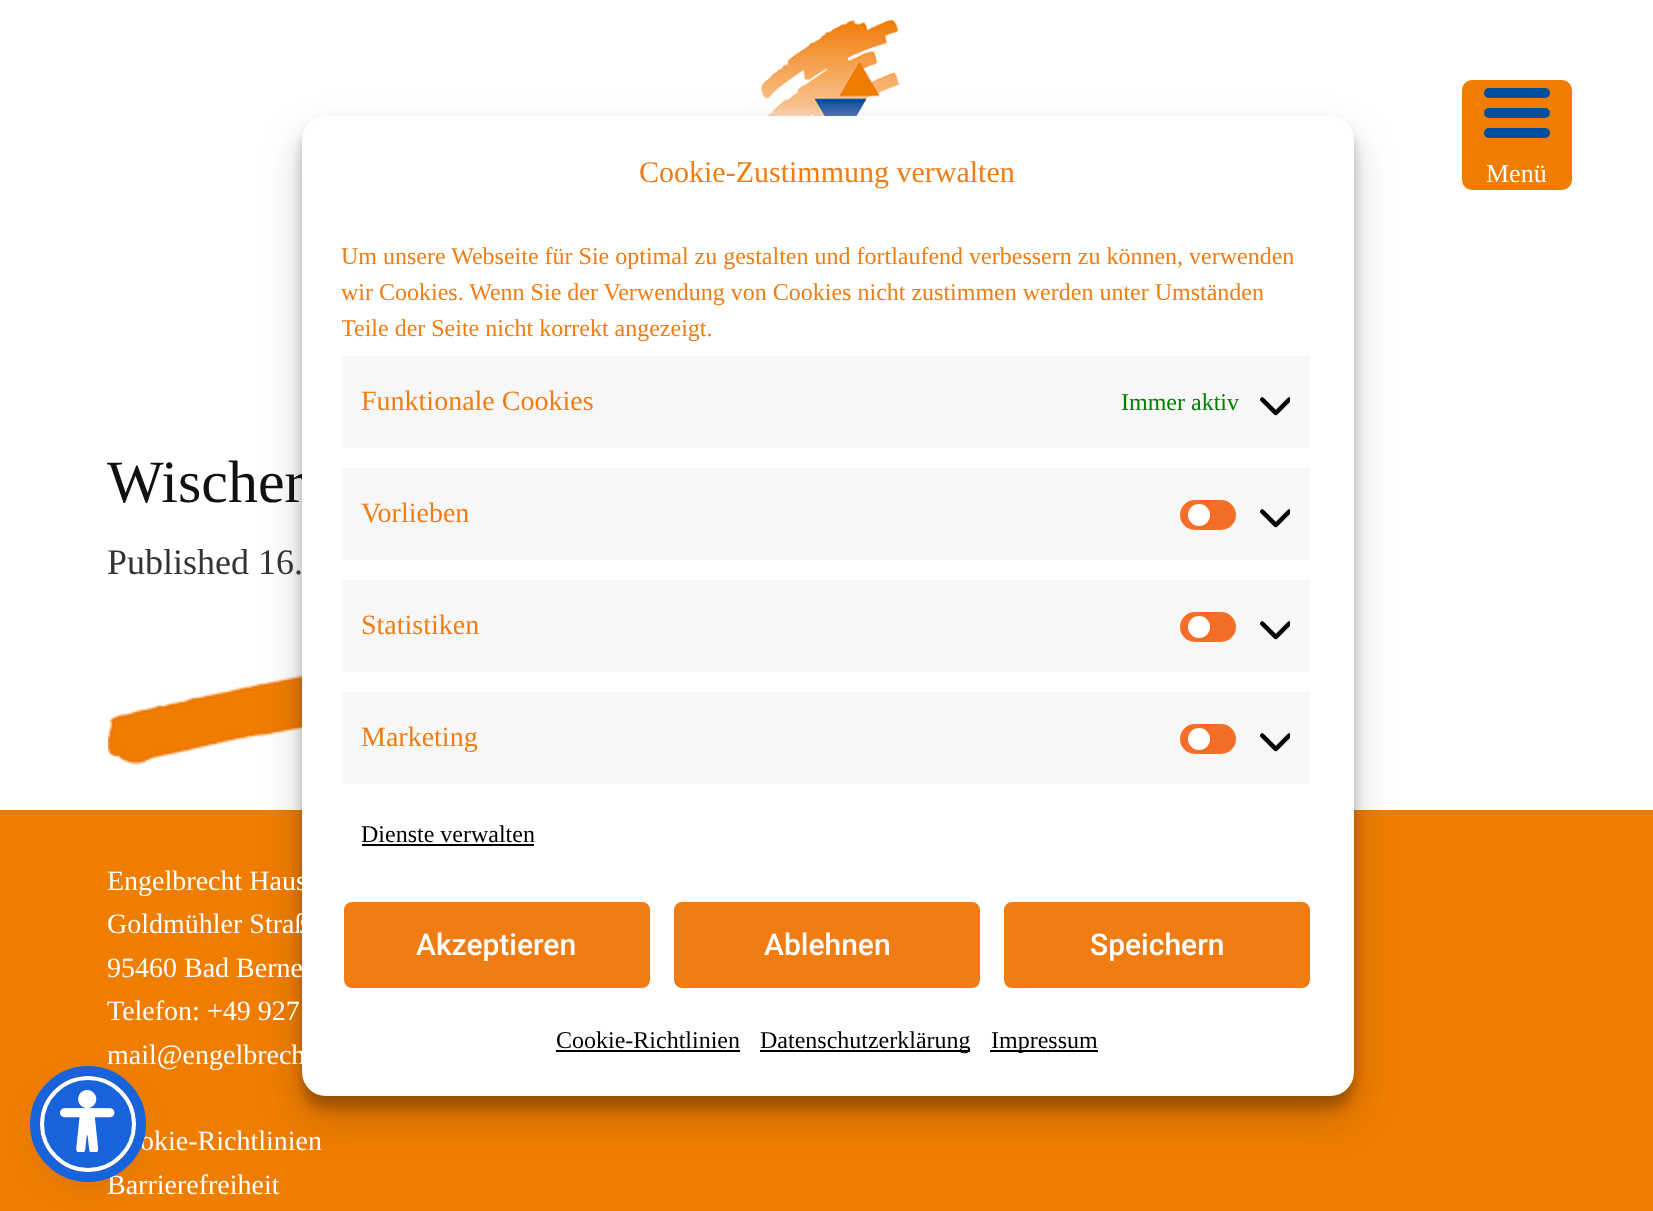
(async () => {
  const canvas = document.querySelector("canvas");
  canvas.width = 1653;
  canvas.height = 1211;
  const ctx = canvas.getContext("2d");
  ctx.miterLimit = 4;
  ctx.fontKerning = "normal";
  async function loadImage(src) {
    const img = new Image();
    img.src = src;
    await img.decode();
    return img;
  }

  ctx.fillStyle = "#ffffff";
  ctx.fillRect(0, 0, 1653, 1211);
  ctx.drawImage(await loadImage("img/2.png"), 761, 20, 139, 96);
  ctx.drawImage(await loadImage("img/3.png"), 108, 675, 194, 90);
  ctx.fillStyle = "#ef7d00";
  ctx.fillRect(0, 810, 1653, 401);
  ctx.fillStyle = "rgba(0, 0, 0, 0.23)";
  ctx.filter = "blur(6px)";
  ctx.beginPath();
  ctx.roundRect(302, 128, 1052, 980, 24);
  ctx.fill();
  ctx.filter = "none";
  ctx.fillStyle = "rgba(0, 0, 0, 0.19)";
  ctx.filter = "blur(20px)";
  ctx.beginPath();
  ctx.roundRect(302, 136, 1052, 980, 24);
  ctx.fill();
  ctx.filter = "none";
  ctx.fillStyle = "#ef7d00";
  ctx.beginPath();
  ctx.roundRect(1462, 80, 110, 110, 10);
  ctx.fill();
  ctx.fillStyle = "#004f9e";
  ctx.beginPath();
  ctx.roundRect(1484, 108, 66, 10, 5);
  ctx.fill();
  ctx.beginPath();
  ctx.roundRect(1484, 88, 66, 10, 5);
  ctx.fill();
  ctx.beginPath();
  ctx.roundRect(1484, 128, 66, 10, 5);
  ctx.fill();
  ctx.fillStyle = "rgba(93, 100, 148, 0.2)";
  ctx.filter = "blur(4px)";
  ctx.beginPath();
  ctx.roundRect(40, 1080, 96, 96, 48);
  ctx.fill();
  ctx.filter = "none";
  ctx.fillStyle = "rgba(37, 44, 97, 0.15)";
  ctx.filter = "blur(15px)";
  ctx.beginPath();
  ctx.roundRect(40, 1086, 96, 96, 48);
  ctx.fill();
  ctx.filter = "none";
  ctx.fillStyle = "#1863dc";
  ctx.beginPath();
  ctx.arc(88, 1124, 46, 0, Math.PI * 2);
  ctx.fill();
  ctx.strokeStyle = "#ffffff";
  ctx.lineWidth = 4;
  ctx.stroke();
  ctx.font = "26px Liberation Serif";
  ctx.fillStyle = "#ffffff";
  ctx.fillText("Menü", 1486, 182);
  ctx.font = "60px Liberation Serif";
  ctx.fillStyle = "#111111";
  ctx.fillText("Wischer", 107, 502);
  ctx.fillStyle = "#ffffff";
  ctx.beginPath();
  ctx.roundRect(302, 116, 1052, 980, 24);
  ctx.fill();
  ctx.fillStyle = "#f7f7f7";
  ctx.fillRect(342, 692, 968, 92);
  ctx.drawImage(await loadImage("img/1.png"), 1260, 733, 30, 19);
  ctx.fillStyle = "#f56e28";
  ctx.beginPath();
  ctx.roundRect(1180, 724, 56, 30, 15);
  ctx.fill();
  ctx.fillStyle = "#ffffff";
  ctx.beginPath();
  ctx.arc(1199, 739, 11, 0, Math.PI * 2);
  ctx.fill();
  ctx.fillStyle = "#f7f7f7";
  ctx.fillRect(342, 580, 968, 92);
  ctx.drawImage(await loadImage("img/1.png"), 1260, 621, 30, 19);
  ctx.fillStyle = "#f56e28";
  ctx.beginPath();
  ctx.roundRect(1180, 612, 56, 30, 15);
  ctx.fill();
  ctx.fillStyle = "#ffffff";
  ctx.beginPath();
  ctx.arc(1199, 627, 11, 0, Math.PI * 2);
  ctx.fill();
  ctx.fillStyle = "#f7f7f7";
  ctx.fillRect(342, 468, 968, 92);
  ctx.drawImage(await loadImage("img/1.png"), 1260, 509, 30, 19);
  ctx.fillStyle = "#f56e28";
  ctx.beginPath();
  ctx.roundRect(1180, 500, 56, 30, 15);
  ctx.fill();
  ctx.fillStyle = "#ffffff";
  ctx.beginPath();
  ctx.arc(1199, 515, 11, 0, Math.PI * 2);
  ctx.fill();
  ctx.fillStyle = "#f7f7f7";
  ctx.fillRect(342, 356, 968, 92);
  ctx.drawImage(await loadImage("img/1.png"), 1260, 397, 30, 19);
  ctx.font = "28px Liberation Serif";
  ctx.fillStyle = "#ef7d14";
  for (const [text, x, y] of [
    ["Marketing", 361, 746],
    ["Statistiken", 361, 634],
    ["Vorlieben", 361, 522],
  ]) {
    ctx.fillText(text, x, y);
  }
  ctx.font = "24px Liberation Serif";
  ctx.fillStyle = "#008000";
  ctx.fillText("Immer aktiv", 1121, 410);
  ctx.font = "28px Liberation Serif";
  ctx.fillStyle = "#ef7d14";
  ctx.fillText("Funktionale Cookies", 361, 410);
  ctx.save();
  ctx.beginPath();
  ctx.rect(342, 238, 972, 546);
  ctx.clip();
  ctx.font = "24px Liberation Serif";
  ctx.fillText("Teile der Seite nicht korrekt angezeigt.", 341, 336);
  ctx.restore();
  ctx.font = "24px Liberation Serif";
  ctx.fillText("wir Cookies. Wenn Sie der Verwendung von Cookies nicht zustimmen werden unter Umständen", 341, 300);
  ctx.fillText("Um unsere Webseite für Sie optimal zu gestalten und fortlaufend verbessern zu können, verwenden", 341, 264);
  ctx.fillStyle = "#000000";
  ctx.fillRect(990, 1050, 108, 2);
  ctx.fillText("Impressum", 991, 1048);
  ctx.fillRect(760, 1050, 210, 2);
  ctx.fillText("Datenschutzerklärung", 760, 1048);
  ctx.fillText("Cookie-Richtlinien", 556, 1048);
  ctx.fillRect(556, 1050, 184, 2);
  ctx.fillStyle = "#ef7d14";
  ctx.beginPath();
  ctx.roundRect(1003, 901, 308, 88, 9);
  ctx.fill();
  ctx.lineWidth = 2;
  ctx.stroke();
  ctx.font = "500 30px Roboto";
  ctx.fillStyle = "#ffffff";
  ctx.fillText("Speichern", 1090, 955);
  ctx.fillStyle = "#ef7d14";
  ctx.beginPath();
  ctx.roundRect(673, 901, 308, 88, 9);
  ctx.fill();
  ctx.stroke();
  ctx.fillStyle = "#ffffff";
  ctx.fillText("Ablehnen", 764, 955);
  ctx.fillStyle = "#ef7d14";
  ctx.beginPath();
  ctx.roundRect(343, 901, 308, 88, 9);
  ctx.fill();
  ctx.stroke();
  ctx.fillStyle = "#ffffff";
  ctx.fillText("Akzeptieren", 416, 955);
  ctx.font = "24px Liberation Serif";
  ctx.fillStyle = "#000000";
  ctx.fillText("Dienste verwalten", 361, 842);
  ctx.fillRect(362, 844, 172, 2);
  ctx.font = "30px Liberation Serif";
  ctx.fillStyle = "#ef7d14";
  ctx.fillText("Cookie-Zustimmung verwalten", 639, 182);
  ctx.font = "36px Liberation Serif";
  ctx.fillStyle = "#333333";
  ctx.fillText("Published 16.", 107, 574);
  ctx.font = "28px Liberation Serif";
  ctx.fillStyle = "#ffffff";
  for (const [text, x, y] of [
    ["Engelbrecht Haus", 107, 890],
    ["Goldmühler Straß", 107, 933],
    ["95460 Bad Berne", 107, 977],
    ["Telefon: +49 927", 107, 1020],
    ["mail@engelbrech", 107, 1064],
    ["okie-Richtlinien", 140, 1150],
    ["Barrierefreiheit", 107, 1194],
  ]) {
    ctx.fillText(text, x, y);
  }
  ctx.beginPath();
  ctx.arc(88, 1124, 53, 0, Math.PI * 2);
  ctx.strokeStyle = "#1863dc";
  ctx.lineWidth = 10;
  ctx.stroke();
  ctx.drawImage(await loadImage("img/4.png"), 60, 1090, 55, 62);
})();
